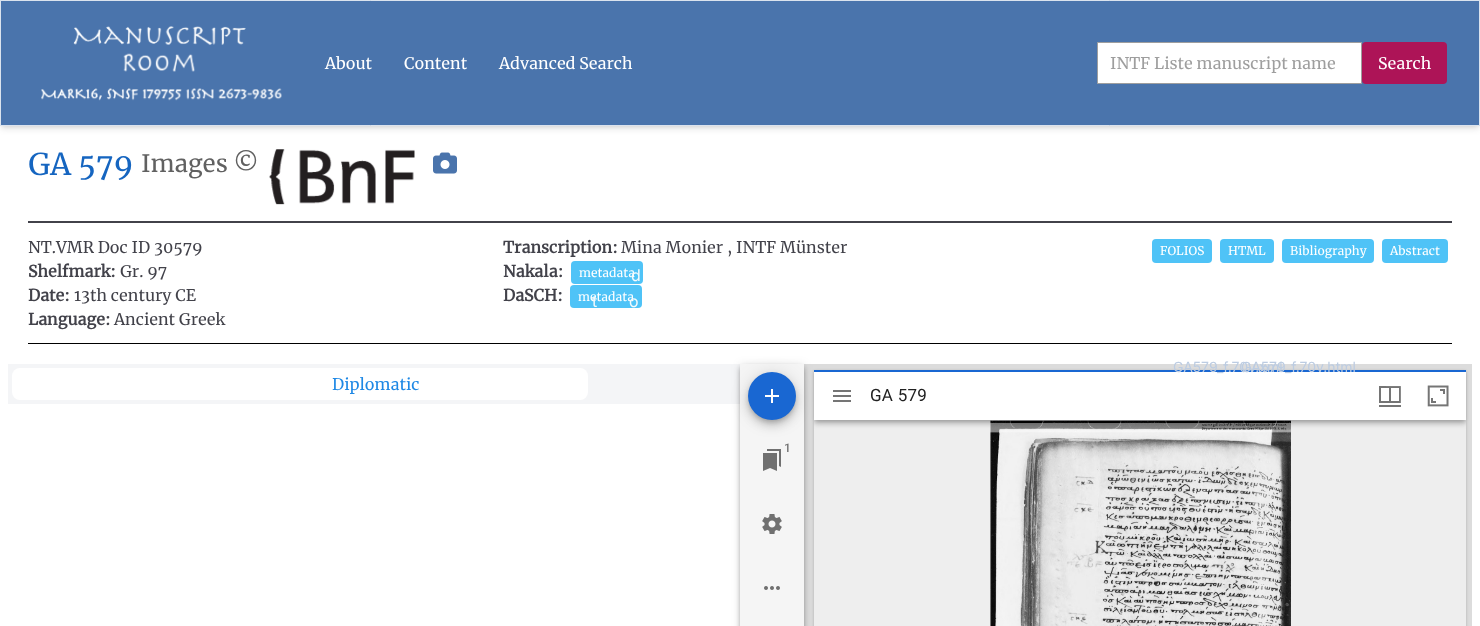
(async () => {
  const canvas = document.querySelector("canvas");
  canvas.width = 1480;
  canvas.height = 626;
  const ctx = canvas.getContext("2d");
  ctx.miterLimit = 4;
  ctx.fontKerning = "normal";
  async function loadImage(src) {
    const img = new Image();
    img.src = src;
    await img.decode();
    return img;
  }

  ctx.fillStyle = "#ffffff";
  ctx.fillRect(0, 0, 1480, 626);
  ctx.fillStyle = "rgba(0, 0, 0, 0.1)";
  ctx.filter = "blur(2px)";
  ctx.beginPath();
  ctx.rect(2, 4, 1476, 122);
  ctx.fill();
  ctx.filter = "none";
  ctx.filter = "blur(3px)";
  ctx.beginPath();
  ctx.rect(1, 5, 1478, 124);
  ctx.fill();
  ctx.filter = "none";
  ctx.fillStyle = "#4a74ac";
  ctx.beginPath();
  ctx.rect(0.5, 0.5, 1479, 125);
  ctx.fill();
  ctx.strokeStyle = "#dbe3ee";
  ctx.stroke();
  ctx.drawImage(await loadImage("img/1.png"), 41, 26, 241, 75);
  ctx.fillStyle = "#ffffff";
  ctx.beginPath();
  ctx.rect(1097.5, 42.5, 264, 41);
  ctx.fill();
  ctx.strokeStyle = "#9e9e9e";
  ctx.stroke();
  ctx.fillStyle = "#ad1457";
  ctx.beginPath();
  ctx.roundRect(1362, 42, 85, 42, 4);
  ctx.fill();
  ctx.fillStyle = "#42424a";
  ctx.fillRect(28, 221, 1424, 2);
  ctx.drawImage(await loadImage("img/2.png"), 269, 149, 146, 56);
  ctx.drawImage(await loadImage("img/3.png"), 433, 152, 24, 22);
  ctx.fillStyle = "#000000";
  ctx.fillRect(28, 343, 1424, 1);
  ctx.fillStyle = "#4fc3f7";
  ctx.beginPath();
  ctx.roundRect(571, 261, 72, 23, 4);
  ctx.fill();
  ctx.beginPath();
  ctx.roundRect(570, 285, 72, 23, 4);
  ctx.fill();
  ctx.beginPath();
  ctx.roundRect(1152, 239, 60, 24, 4);
  ctx.fill();
  ctx.beginPath();
  ctx.roundRect(1282, 239, 92, 24, 4);
  ctx.fill();
  ctx.beginPath();
  ctx.roundRect(1382, 239, 66, 24, 4);
  ctx.fill();
  ctx.beginPath();
  ctx.roundRect(1220, 239, 54, 24, 4);
  ctx.fill();
  ctx.fillStyle = "#f4f5f7";
  ctx.fillRect(8, 364, 732, 40);
  ctx.fillStyle = "#ffffff";
  ctx.beginPath();
  ctx.roundRect(12, 368, 576, 32, 8);
  ctx.fill();
  ctx.fillStyle = "#dcdcdc";
  ctx.fillRect(804, 364, 668, 262);
  ctx.fillStyle = "rgba(0, 0, 0, 0.2)";
  ctx.filter = "blur(0.5px)";
  ctx.beginPath();
  ctx.rect(814, 371, 652, 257);
  ctx.fill();
  ctx.filter = "none";
  ctx.filter = "blur(1.5px)";
  ctx.beginPath();
  ctx.rect(814, 371, 652, 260);
  ctx.fill();
  ctx.filter = "none";
  ctx.fillStyle = "#eeeeee";
  ctx.fillRect(814, 420, 652, 206);
  ctx.drawImage(await loadImage("img/7.png"), 990, 420, 301, 206);
  ctx.save();
  ctx.beginPath();
  ctx.rect(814, 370, 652, 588);
  ctx.clip();
  ctx.fillStyle = "rgba(0, 0, 0, 0.12)";
  ctx.filter = "blur(5px)";
  ctx.beginPath();
  ctx.rect(814, 371, 652, 50);
  ctx.fill();
  ctx.filter = "none";
  ctx.fillStyle = "rgba(0, 0, 0, 0.14)";
  ctx.filter = "blur(2.5px)";
  ctx.beginPath();
  ctx.rect(814, 374, 652, 50);
  ctx.fill();
  ctx.filter = "none";
  ctx.restore();
  ctx.fillStyle = "rgba(0, 0, 0, 0.2)";
  ctx.filter = "blur(2px)";
  ctx.beginPath();
  ctx.rect(815, 373, 650, 48);
  ctx.fill();
  ctx.filter = "none";
  ctx.fillStyle = "#ffffff";
  ctx.fillRect(814, 372, 652, 48);
  ctx.fillStyle = "#1967d2";
  ctx.fillRect(814, 370, 652, 2);
  ctx.drawImage(await loadImage("img/4.png"), 833, 390, 18, 12);
  ctx.drawImage(await loadImage("img/5.png"), 1379, 386, 22, 21);
  ctx.drawImage(await loadImage("img/6.png"), 1427, 385, 22, 22);
  ctx.fillStyle = "rgba(0, 0, 0, 0.12)";
  ctx.filter = "blur(5px)";
  ctx.beginPath();
  ctx.rect(740, 365, 64, 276);
  ctx.fill();
  ctx.filter = "none";
  ctx.fillStyle = "rgba(0, 0, 0, 0.14)";
  ctx.filter = "blur(2.5px)";
  ctx.beginPath();
  ctx.rect(740, 368, 64, 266);
  ctx.fill();
  ctx.filter = "none";
  ctx.fillStyle = "rgba(0, 0, 0, 0.2)";
  ctx.filter = "blur(2px)";
  ctx.beginPath();
  ctx.rect(741, 367, 62, 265);
  ctx.fill();
  ctx.filter = "none";
  ctx.fillStyle = "#f5f5f5";
  ctx.fillRect(740, 364, 64, 262);
  ctx.fillStyle = "rgba(0, 0, 0, 0.12)";
  ctx.filter = "blur(9px)";
  ctx.beginPath();
  ctx.roundRect(748, 373, 48, 48, 24);
  ctx.fill();
  ctx.filter = "none";
  ctx.fillStyle = "rgba(0, 0, 0, 0.14)";
  ctx.filter = "blur(5px)";
  ctx.beginPath();
  ctx.roundRect(748, 378, 48, 48, 24);
  ctx.fill();
  ctx.filter = "none";
  ctx.fillStyle = "rgba(0, 0, 0, 0.2)";
  ctx.filter = "blur(2.5px)";
  ctx.beginPath();
  ctx.roundRect(749, 376, 46, 46, 23);
  ctx.fill();
  ctx.filter = "none";
  ctx.fillStyle = "#1967d2";
  ctx.beginPath();
  ctx.arc(772, 396, 24, 0, Math.PI * 2);
  ctx.fill();
  ctx.drawImage(await loadImage("img/8.png"), 765, 389, 14, 14);
  ctx.drawImage(await loadImage("img/9.png"), 763, 449, 18, 22);
  ctx.drawImage(await loadImage("img/10.png"), 762, 514, 20, 20);
  ctx.drawImage(await loadImage("img/11.png"), 764, 586, 16, 4);
  ctx.font = "16px Merriweather";
  ctx.fillStyle = "#ffffff";
  for (const [text, x, y] of [
    ["About", 325, 69],
    ["Content", 404, 69],
    ["Advanced Search", 499, 69],
  ]) {
    ctx.fillText(text, x, y);
  }
  ctx.fillStyle = "#9e9e9e";
  ctx.fillText("INTF Liste manuscript name", 1110, 69);
  ctx.fillStyle = "#ffffff";
  ctx.fillText("Search", 1378, 69);
  ctx.font = "30px Merriweather";
  ctx.fillStyle = "#1565c0";
  ctx.fillText("GA 579", 28, 175);
  ctx.font = "24px Merriweather";
  ctx.fillStyle = "#616161";
  ctx.fillText("Images ©", 141, 172);
  ctx.font = "16px Merriweather";
  ctx.fillStyle = "#42424a";
  ctx.fillText("NT.VMR Doc ID 30579", 28, 253);
  ctx.font = "bold 16px Merriweather";
  ctx.fillText("Shelfmark:", 28, 277);
  ctx.font = "16px Merriweather";
  ctx.fillText("Gr. 97", 120, 277);
  ctx.font = "bold 16px Merriweather";
  ctx.fillText("Date:", 28, 301);
  ctx.font = "16px Merriweather";
  ctx.fillText("13th century CE", 74, 301);
  ctx.font = "bold 16px Merriweather";
  ctx.fillText("Language:", 28, 325);
  ctx.font = "16px Merriweather";
  ctx.fillText("Ancient Greek", 114, 325);
  ctx.font = "bold 16px Merriweather";
  ctx.fillText("Transcription:", 503, 253);
  ctx.font = "16px Merriweather";
  ctx.fillText("Mina Monier , INTF Münster", 621, 253);
  ctx.font = "bold 16px Merriweather";
  ctx.fillText("Nakala:", 503, 277);
  ctx.font = "12px Merriweather";
  ctx.fillStyle = "#ffffff";
  ctx.fillText("metadata", 579, 277);
  ctx.font = "bold 16px Merriweather";
  ctx.fillStyle = "#42424a";
  ctx.fillText("DaSCH:", 503, 301);
  ctx.font = "12px Merriweather";
  ctx.fillStyle = "#ffffff";
  ctx.fillText("metadata", 578, 301);
  ctx.fillText("FOLIOS", 1160, 255);
  ctx.font = "14px Inter";
  ctx.fillStyle = "#bccce2";
  ctx.fillText("GA579_f.70v.xml", 1173, 372);
  ctx.font = "12px Merriweather";
  ctx.fillStyle = "#ffffff";
  for (const [text, x, y] of [
    ["Bibliography", 1290, 255],
    ["Abstract", 1390, 255],
    ["HTML", 1228, 255],
  ]) {
    ctx.fillText(text, x, y);
  }
  ctx.font = "14px Inter";
  ctx.fillStyle = "#bccce2";
  ctx.fillText("GA579_f.70v.html", 1241, 372);
  ctx.font = "16px 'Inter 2'";
  ctx.fillStyle = "#f4fafc";
  for (const [text, x, y] of [
    ["d", 631, 281],
    ["t", 592, 307],
    ["o", 629, 307],
  ]) {
    ctx.fillText(text, x, y);
  }
  ctx.font = "16px Merriweather";
  ctx.fillStyle = "#1e88e5";
  ctx.fillText("Diplomatic", 332, 390);
  ctx.letterSpacing = "0.25px";
  ctx.font = "17px Roboto";
  ctx.fillStyle = "#212121";
  ctx.fillText("GA 579", 870, 401);
  ctx.letterSpacing = "0px";
  ctx.font = "500 12px Roboto";
  ctx.fillStyle = "#717171";
  ctx.fillText("1", 784, 452);
})();
